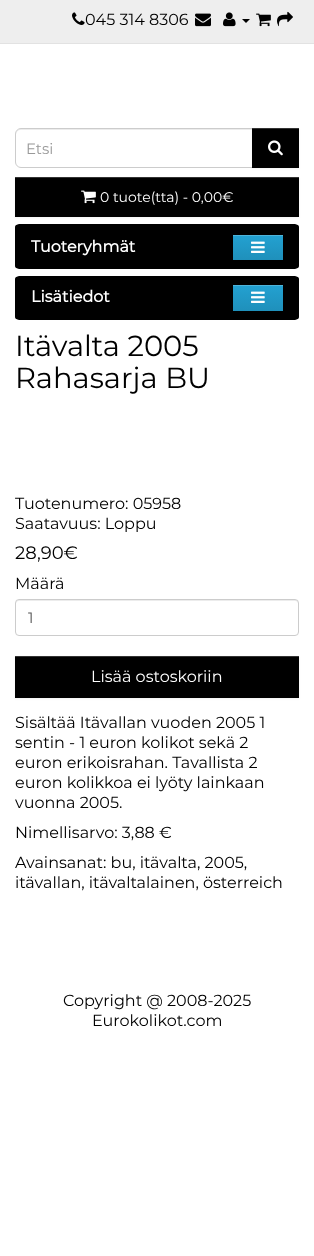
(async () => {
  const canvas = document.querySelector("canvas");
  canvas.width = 314;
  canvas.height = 1256;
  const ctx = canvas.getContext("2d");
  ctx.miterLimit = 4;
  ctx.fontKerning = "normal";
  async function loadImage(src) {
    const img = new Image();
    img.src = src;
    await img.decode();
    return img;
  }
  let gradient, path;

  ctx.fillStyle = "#ffffff";
  ctx.fillRect(0, 0, 314, 1256);
  ctx.fillStyle = "#eeeeee";
  ctx.fillRect(0, 0, 314, 43);
  ctx.fillStyle = "#e2e2e2";
  ctx.fillRect(0, 43, 314, 1);
  ctx.drawImage(await loadImage("img/1.png"), 72, 12, 13, 13);
  ctx.drawImage(await loadImage("img/2.png"), 195, 13, 16, 14);
  ctx.drawImage(await loadImage("img/3.png"), 223, 12, 13, 15);
  ctx.fillStyle = "#000000";
  path = new Path2D("M242 19H250L246 23Z");
  ctx.fill(path);
  ctx.drawImage(await loadImage("img/4.png"), 256, 13, 15, 14);
  ctx.drawImage(await loadImage("img/5.png"), 277, 11, 16, 16);
  ctx.fillStyle = "#ececec";
  path = new Path2D("M21 130H252V129H21C18 129 16 131 16 134V135C16 132 18 130 21 130Z");
  ctx.fill(path);
  ctx.beginPath();
  ctx.roundRect(15.5, 128.5, 237, 39, [5.5, 0, 0, 5.5]);
  ctx.strokeStyle = "#cccccc";
  ctx.stroke();
  ctx.fillStyle = "rgba(0, 0, 0, 0.05)";
  ctx.filter = "blur(1px)";
  ctx.beginPath();
  ctx.rect(252, 129, 47, 40);
  ctx.fill();
  ctx.filter = "none";
  ctx.fillStyle = "#000000";
  ctx.fillRect(252, 129, 47, 39);
  ctx.fillStyle = "#333333";
  ctx.fillRect(252, 128, 47, 1);
  ctx.drawImage(await loadImage("img/6.png"), 268, 140, 15, 16);
  ctx.fillStyle = "rgba(0, 0, 0, 0.05)";
  ctx.filter = "blur(1px)";
  ctx.beginPath();
  ctx.rect(15, 178, 284, 40);
  ctx.fill();
  ctx.filter = "none";
  ctx.fillStyle = "#000000";
  ctx.fillRect(15, 178, 284, 39);
  ctx.fillStyle = "#333333";
  ctx.fillRect(15, 177, 284, 1);
  ctx.drawImage(await loadImage("img/7.png"), 81, 190, 15, 14);
  ctx.save();
  ctx.beginPath();
  ctx.roundRect(15, 224, 284, 45, 4);
  ctx.clip();
  ctx.fillStyle = "#000000";
  ctx.fillRect(15, 225, 284, 43);
  ctx.restore();
  ctx.beginPath();
  ctx.roundRect(15.5, 224.5, 283, 44, 3.5);
  ctx.strokeStyle = "#000000";
  ctx.stroke();
  gradient = ctx.createLinearGradient(258, 235, 258, 260);
  gradient.addColorStop(0, "#23a1d1");
  gradient.addColorStop(1, "#1f90bb");
  ctx.fillStyle = gradient;
  ctx.fillRect(233, 236, 50, 24);
  ctx.fillStyle = "#4fb4da";
  ctx.fillRect(233, 235, 50, 1);
  ctx.drawImage(await loadImage("img/8.png"), 251, 241, 14, 12);
  ctx.save();
  ctx.beginPath();
  ctx.roundRect(15, 276, 284, 44, 4);
  ctx.clip();
  ctx.fillStyle = "#000000";
  ctx.fillRect(15, 277, 284, 42);
  ctx.restore();
  ctx.beginPath();
  ctx.roundRect(15.5, 276.5, 283, 43, 3.5);
  ctx.stroke();
  gradient = ctx.createLinearGradient(258, 285, 258, 311);
  gradient.addColorStop(0, "#23a1d1");
  gradient.addColorStop(1, "#1f90bb");
  ctx.fillStyle = gradient;
  ctx.fillRect(233, 286, 50, 25);
  ctx.fillStyle = "#4fb4da";
  ctx.fillRect(233, 285, 50, 1);
  ctx.drawImage(await loadImage("img/9.png"), 251, 291, 14, 12);
  ctx.fillStyle = "#ececec";
  path = new Path2D("M19 601H295C297 601 298 602 298 604V603C298 601 297 600 295 600H19C17 600 16 601 16 603V604C16 602 17 601 19 601Z");
  ctx.fill(path);
  ctx.beginPath();
  ctx.roundRect(15.5, 599.5, 283, 36, 3.5);
  ctx.strokeStyle = "#cccccc";
  ctx.stroke();
  ctx.fillStyle = "rgba(0, 0, 0, 0.05)";
  ctx.filter = "blur(1px)";
  ctx.beginPath();
  ctx.rect(15, 657, 284, 42);
  ctx.fill();
  ctx.filter = "none";
  ctx.fillStyle = "#000000";
  ctx.fillRect(15, 657, 284, 41);
  ctx.fillStyle = "#333333";
  ctx.fillRect(15, 656, 284, 1);
  ctx.font = "100 16px Montserrat";
  ctx.fillStyle = "#000000";
  ctx.fillText("045 314 8306", 85, 25);
  ctx.font = "100 15px Montserrat";
  ctx.fillStyle = "#999999";
  ctx.fillText("Etsi", 26, 154);
  ctx.font = "100 14px Montserrat";
  ctx.fillStyle = "#ffffff";
  ctx.fillText("0 tuote(tta) - 0,00€", 100, 202);
  ctx.font = "bold 16px Montserrat";
  ctx.fillText("Tuoteryhmät", 31, 252);
  ctx.fillText("Lisätiedot", 31, 302);
  ctx.font = "100 29px Montserrat";
  ctx.fillStyle = "#000000";
  ctx.fillText("Itävalta 2005", 15, 356);
  ctx.fillText("Rahasarja BU", 15, 388);
  ctx.font = "100 16px Montserrat";
  ctx.fillText("Tuotenumero: 05958", 15, 509);
  ctx.fillText("Saatavuus: Loppu", 15, 529);
  ctx.font = "100 18px Montserrat";
  ctx.fillText("28,90€", 15, 559);
  ctx.font = "100 16px Montserrat";
  ctx.fillText("Määrä", 15, 589);
  ctx.font = "100 15px Montserrat";
  ctx.fillStyle = "#555555";
  ctx.fillText("1", 28, 623);
  ctx.font = "100 16px Montserrat";
  ctx.fillStyle = "#ffffff";
  ctx.fillText("Lisää ostoskoriin", 91, 682);
  ctx.fillStyle = "#000000";
  for (const [text, x, y] of [
    ["Sisältää Itävallan vuoden 2005 1", 15, 728],
    ["sentin - 1 euron kolikot sekä 2", 15, 748],
    ["euron erikoisrahan. Tavallista 2", 15, 768],
    ["euron kolikkoa ei lyöty lainkaan", 15, 788],
    ["vuonna 2005.", 15, 808],
    ["Nimellisarvo: 3,88 €", 15, 838],
    ["Avainsanat: bu, itävalta, 2005,", 15, 868],
    ["itävallan, itävaltalainen, österreich", 15, 888],
    ["Copyright @ 2008-2025", 63, 1006],
    ["Eurokolikot.com", 92, 1026],
  ]) {
    ctx.fillText(text, x, y);
  }
})();
